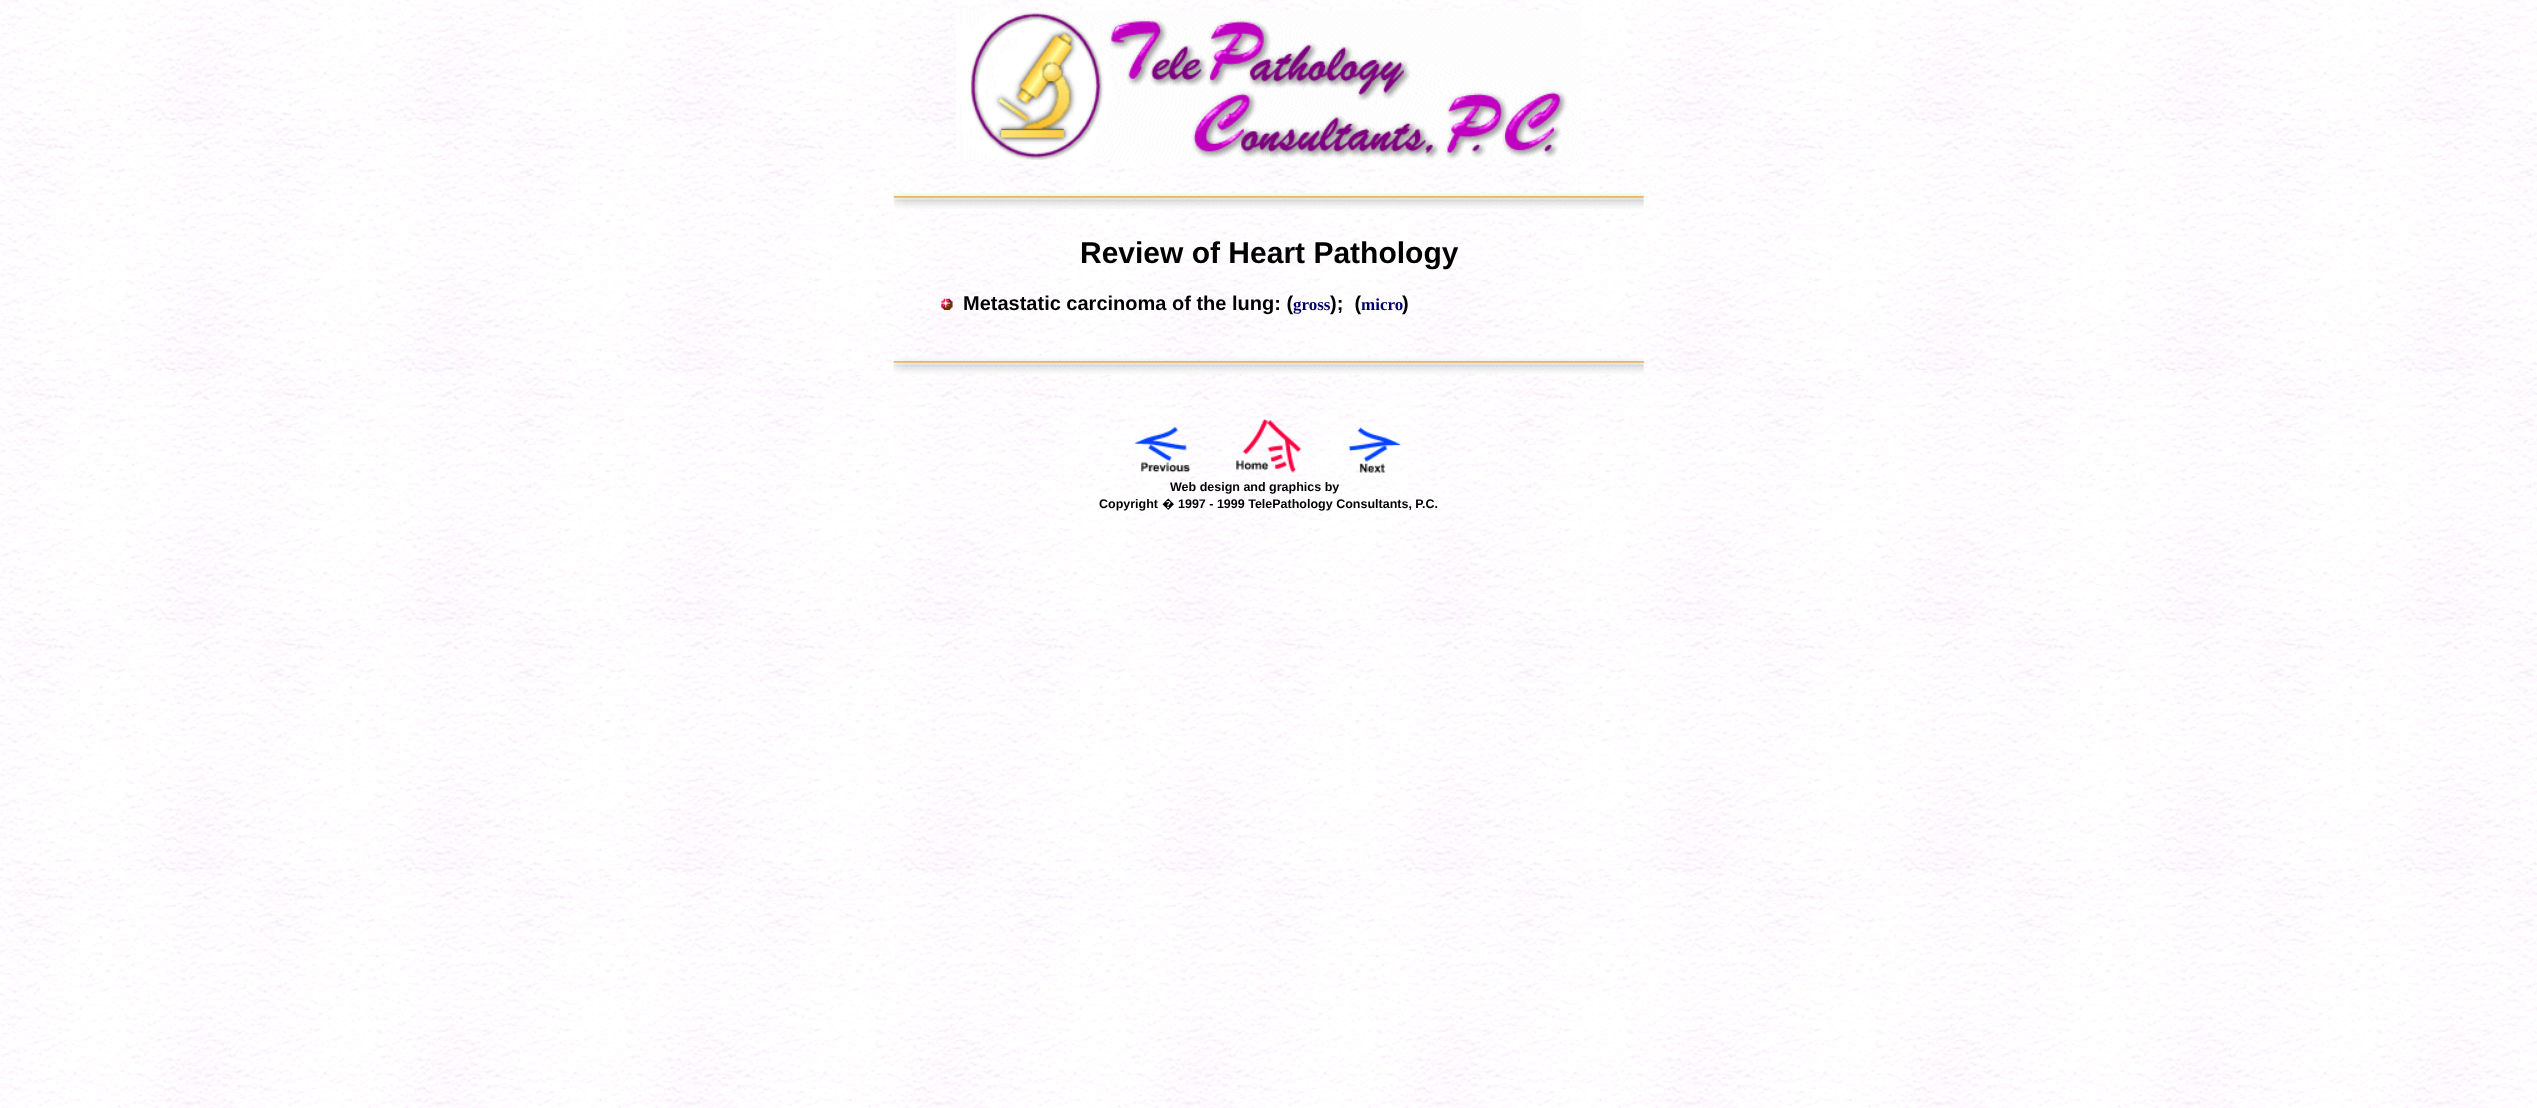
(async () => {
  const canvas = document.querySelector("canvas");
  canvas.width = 2537;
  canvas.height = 1108;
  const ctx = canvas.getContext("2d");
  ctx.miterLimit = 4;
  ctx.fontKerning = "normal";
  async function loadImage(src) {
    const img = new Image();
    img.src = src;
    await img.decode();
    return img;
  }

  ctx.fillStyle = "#ffffff";
  ctx.fillRect(0, 0, 2537, 1108);
  ctx.drawImage(await loadImage("img/1.png"), 0, 0, 2537, 1108);
  ctx.drawImage(await loadImage("img/2.png"), 956, 10, 625, 150);
  ctx.drawImage(await loadImage("img/3.png"), 893, 193, 751, 16);
  ctx.drawImage(await loadImage("img/4.png"), 941, 298, 12, 12);
  ctx.drawImage(await loadImage("img/5.png"), 893, 358, 751, 16);
  ctx.drawImage(await loadImage("img/6.png"), 1134, 426, 57, 47);
  ctx.drawImage(await loadImage("img/7.png"), 1236, 418, 66, 55);
  ctx.drawImage(await loadImage("img/8.png"), 1348, 427, 54, 46);
  ctx.font = "bold 30px Liberation Sans";
  ctx.fillStyle = "#000000";
  ctx.fillText("Review of Heart Pathology", 1080, 263);
  ctx.font = "bold 20px Liberation Sans";
  ctx.fillText("Metastatic carcinoma of the lung: (", 963, 310);
  ctx.font = "bold 17px Liberation Serif";
  ctx.fillStyle = "#000066";
  ctx.fillText("gross", 1293, 310);
  ctx.font = "bold 20px Liberation Sans";
  ctx.fillStyle = "#000000";
  ctx.fillText(");  (", 1330, 310);
  ctx.font = "bold 17px Liberation Serif";
  ctx.fillStyle = "#000066";
  ctx.fillText("micro", 1361, 310);
  ctx.font = "bold 20px Liberation Sans";
  ctx.fillStyle = "#000000";
  ctx.fillText(")", 1402, 310);
  ctx.font = "bold 12.5px Liberation Sans";
  ctx.fillText("Web design and graphics by", 1170, 491);
  ctx.fillText("Copyright", 1099, 508);
  ctx.font = "bold 12.5px Noto Sans";
  ctx.fillText("�", 1162, 508);
  ctx.font = "bold 12.5px Liberation Sans";
  ctx.fillText("1997 - 1999 TelePathology Consultants, P.C.", 1178, 508);
})();
